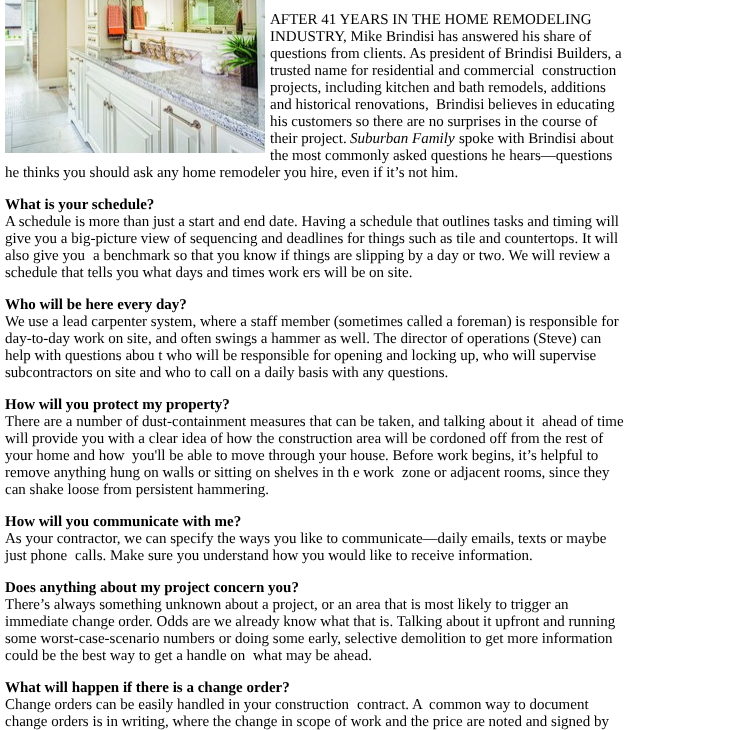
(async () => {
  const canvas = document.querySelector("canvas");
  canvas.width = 729;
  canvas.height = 730;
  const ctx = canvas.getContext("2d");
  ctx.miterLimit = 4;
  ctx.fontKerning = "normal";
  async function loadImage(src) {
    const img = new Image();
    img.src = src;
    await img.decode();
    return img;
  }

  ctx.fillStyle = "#ffffff";
  ctx.fillRect(0, 0, 729, 730);
  ctx.drawImage(await loadImage("img/1.png"), 5, 0, 260, 153);
  ctx.font = "15px Liberation Serif";
  ctx.fillStyle = "#000000";
  for (const [text, x, y] of [
    ["AFTER 41 YEARS IN THE HOME REMODELING", 270, 24],
    ["INDUSTRY, Mike Brindisi has answered his share of", 270, 41],
    ["questions from clients. As president of Brindisi Builders, a", 270, 58],
    ["trusted name for residential and commercial", 270, 75],
    ["construction", 542, 75],
    ["projects, including kitchen and bath remodels, additions", 270, 92],
    ["and historical renovations,", 270, 109],
    ["Brindisi believes in educating", 436, 109],
    ["his customers so there are no surprises in the course of", 270, 126],
    ["their project.", 270, 143],
  ]) {
    ctx.fillText(text, x, y);
  }
  ctx.font = "italic 15px Liberation Serif";
  ctx.fillText("Suburban Family", 350, 143);
  ctx.font = "15px Liberation Serif";
  for (const [text, x, y] of [
    ["spoke with Brindisi about", 459, 143],
    ["the most commonly asked questions he hears—questions", 270, 160],
    ["he thinks you should ask any home remodeler you hire, even if it’s not him.", 5, 177],
  ]) {
    ctx.fillText(text, x, y);
  }
  ctx.font = "bold 15px Liberation Serif";
  ctx.fillText("What is your schedule?", 5, 209);
  ctx.font = "15px Liberation Serif";
  for (const [text, x, y] of [
    ["A schedule is more than just a start and end date. Having a schedule that outlines tasks and timing will", 5, 226],
    ["give you a big-picture view of sequencing and deadlines for things such as tile and countertops. It will", 5, 243],
    ["also give you", 5, 260],
    ["a benchmark so that you know if things are slipping by a day or two. We will review a", 93, 260],
    ["schedule that tells you what days and times work ers will be on site.", 5, 277],
  ]) {
    ctx.fillText(text, x, y);
  }
  ctx.font = "bold 15px Liberation Serif";
  ctx.fillText("Who will be here every day?", 5, 309);
  ctx.font = "15px Liberation Serif";
  for (const [text, x, y] of [
    ["We use a lead carpenter system, where a staff member (sometimes called a foreman) is responsible for", 5, 326],
    ["day-to-day work on site, and often swings a hammer as well. The director of operations (Steve) can", 5, 343],
    ["help with questions abou t who will be responsible for opening and locking up, who will supervise", 5, 360],
    ["subcontractors on site and who to call on a daily basis with any questions.", 5, 377],
  ]) {
    ctx.fillText(text, x, y);
  }
  ctx.font = "bold 15px Liberation Serif";
  ctx.fillText("How will you protect my property?", 5, 409);
  ctx.font = "15px Liberation Serif";
  for (const [text, x, y] of [
    ["There are a number of dust-containment measures that can be taken, and talking about it", 5, 426],
    ["ahead of time", 542, 426],
    ["will provide you with a clear idea of how the construction area will be cordoned off from the rest of", 5, 443],
    ["your home and how", 5, 460],
    ["you'll be able to move through your house. Before work begins, it’s helpful to", 132, 460],
    ["remove anything hung on walls or sitting on shelves in th e work", 5, 477],
    ["zone or adjacent rooms, since they", 402, 477],
    ["can shake loose from persistent hammering.", 5, 494],
  ]) {
    ctx.fillText(text, x, y);
  }
  ctx.font = "bold 15px Liberation Serif";
  ctx.fillText("How will you communicate with me?", 5, 526);
  ctx.font = "15px Liberation Serif";
  for (const [text, x, y] of [
    ["As your contractor, we can specify the ways you like to communicate—daily emails, texts or maybe", 5, 543],
    ["just phone", 5, 560],
    ["calls. Make sure you understand how you would like to receive information.", 75, 560],
  ]) {
    ctx.fillText(text, x, y);
  }
  ctx.font = "bold 15px Liberation Serif";
  ctx.fillText("Does anything about my project concern you?", 5, 592);
  ctx.font = "15px Liberation Serif";
  for (const [text, x, y] of [
    ["There’s always something unknown about a project, or an area that is most likely to trigger an", 5, 609],
    ["immediate change order. Odds are we already know what that is. Talking about it upfront and running", 5, 626],
    ["some worst-case-scenario numbers or doing some early, selective demolition to get more information", 5, 643],
    ["could be the best way to get a handle on", 5, 660],
    ["what may be ahead.", 253, 660],
  ]) {
    ctx.fillText(text, x, y);
  }
  ctx.font = "bold 15px Liberation Serif";
  ctx.fillText("What will happen if there is a change order?", 5, 692);
  ctx.font = "15px Liberation Serif";
  for (const [text, x, y] of [
    ["Change orders can be easily handled in your construction", 5, 709],
    ["contract. A", 357, 709],
    ["common way to document", 429, 709],
    ["change orders is in writing, where the change in scope of work and the price are noted and signed by", 5, 726],
  ]) {
    ctx.fillText(text, x, y);
  }
})();
